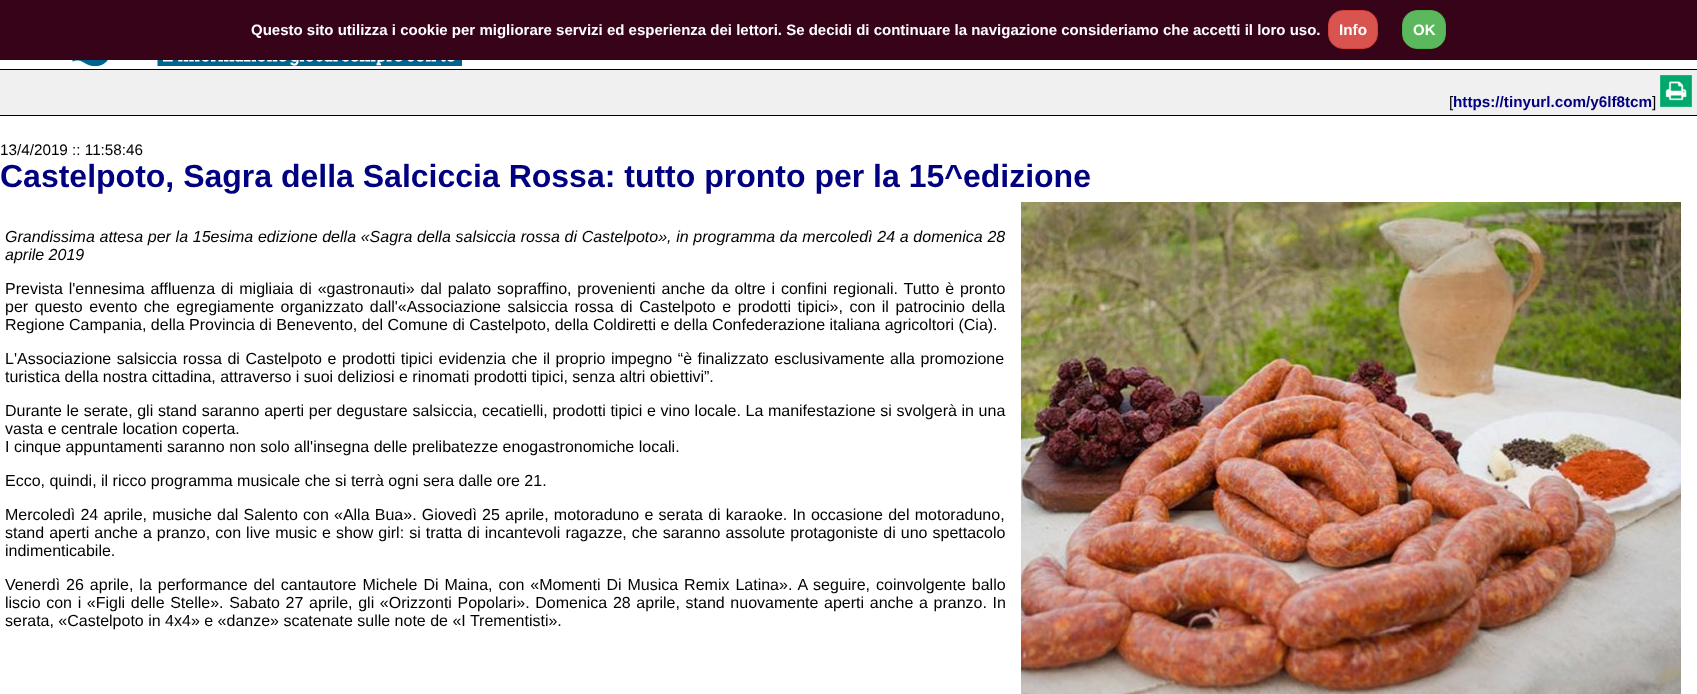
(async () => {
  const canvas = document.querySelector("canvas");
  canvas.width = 1697;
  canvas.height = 694;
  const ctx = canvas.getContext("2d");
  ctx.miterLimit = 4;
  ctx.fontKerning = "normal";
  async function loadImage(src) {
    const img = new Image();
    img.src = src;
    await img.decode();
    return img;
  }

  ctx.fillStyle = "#ffffff";
  ctx.fillRect(0, 0, 1697, 694);
  ctx.fillStyle = "#360319";
  ctx.fillRect(0, 0, 1697, 60);
  ctx.fillStyle = "#d9534f";
  ctx.beginPath();
  ctx.roundRect(1328.5, 10.5, 49, 38, 14.5);
  ctx.fill();
  ctx.strokeStyle = "#d43f3a";
  ctx.stroke();
  ctx.fillStyle = "#5cb85c";
  ctx.beginPath();
  ctx.roundRect(1402.5, 10.5, 43, 38, 14.5);
  ctx.fill();
  ctx.strokeStyle = "#4cae4c";
  ctx.stroke();
  ctx.drawImage(await loadImage("img/1.png"), 72, 60, 390, 6);
  for (const [x, y, w, h, color] of [
    [0, 70, 1697, 45, "#f0f0f0"],
    [0, 69, 1697, 1, "#000000"],
    [0, 115, 1697, 1, "#000000"],
  ]) {
    ctx.fillStyle = color;
    ctx.fillRect(x, y, w, h);
  }
  ctx.drawImage(await loadImage("img/2.png"), 1660, 75, 32, 32);
  ctx.drawImage(await loadImage("img/3.png"), 1021, 202, 660, 492);
  ctx.font = "bold 15px Liberation Sans";
  ctx.fillStyle = "#ffffff";
  ctx.fillText("Questo sito utilizza i cookie per migliorare servizi ed esperienza dei lettori. Se decidi di continuare la navigazione consideriamo che accetti il loro uso.", 251, 35);
  ctx.font = "bold 15.25px Liberation Sans";
  ctx.fillText("Info", 1339, 35);
  ctx.font = "bold 15px Liberation Sans";
  ctx.fillText("OK", 1413, 35);
  ctx.font = "15.25px Liberation Sans";
  ctx.fillStyle = "#000000";
  ctx.fillText("[", 1449, 107);
  ctx.font = "bold 15.25px Liberation Sans";
  ctx.fillStyle = "#000080";
  ctx.fillText("https://tinyurl.com/y6lf8tcm", 1453, 107);
  ctx.font = "15.25px Liberation Sans";
  ctx.fillStyle = "#000000";
  ctx.fillText("]", 1652, 107);
  ctx.fillText("13/4/2019 :: 11:58:46", 0, 155);
  ctx.font = "bold 32px Liberation Sans";
  ctx.fillStyle = "#000080";
  ctx.fillText("Castelpoto, Sagra della Salciccia Rossa: tutto pronto per la 15^edizione", 0, 187);
  ctx.wordSpacing = "0.25px";
  ctx.font = "italic 16px Liberation Sans";
  ctx.fillStyle = "#000000";
  ctx.fillText("Grandissima attesa per la 15esima edizione della «Sagra della salsiccia rossa di Castelpoto», in programma da mercoledì 24 a domenica 28", 5, 242);
  ctx.wordSpacing = "0px";
  ctx.fillText("aprile 2019", 5, 260);
  ctx.wordSpacing = "1.4px";
  ctx.font = "16px Liberation Sans";
  ctx.fillText("Prevista l'ennesima affluenza di migliaia di «gastronauti» dal palato sopraffino, provenienti anche da oltre i confini regionali. Tutto è pronto", 5, 294);
  ctx.wordSpacing = "2.1px";
  ctx.fillText("per questo evento che egregiamente organizzato dall'«Associazione salsiccia rossa di Castelpoto e prodotti tipici», con il patrocinio della", 5, 312);
  ctx.wordSpacing = "0px";
  ctx.fillText("Regione Campania, della Provincia di Benevento, del Comune di Castelpoto, della Coldiretti e della Confederazione italiana agricoltori (Cia).", 5, 330);
  ctx.wordSpacing = "1.1px";
  ctx.fillText("L'Associazione salsiccia rossa di Castelpoto e prodotti tipici evidenzia che il proprio impegno “è finalizzato esclusivamente alla promozione", 5, 364);
  ctx.wordSpacing = "0px";
  ctx.fillText("turistica della nostra cittadina, attraverso i suoi deliziosi e rinomati prodotti tipici, senza altri obiettivi”.", 5, 382);
  ctx.wordSpacing = "0.2px";
  ctx.fillText("Durante le serate, gli stand saranno aperti per degustare salsiccia, cecatielli, prodotti tipici e vino locale. La manifestazione si svolgerà in una", 5, 416);
  ctx.wordSpacing = "0px";
  for (const [text, x, y] of [
    ["vasta e centrale location coperta.", 5, 434],
    ["I cinque appuntamenti saranno non solo all'insegna delle prelibatezze enogastronomiche locali.", 5, 452],
    ["Ecco, quindi, il ricco programma musicale che si terrà ogni sera dalle ore 21.", 5, 486],
  ]) {
    ctx.fillText(text, x, y);
  }
  ctx.wordSpacing = "0.75px";
  ctx.fillText("Mercoledì 24 aprile, musiche dal Salento con «Alla Bua». Giovedì 25 aprile, motoraduno e serata di karaoke. In occasione del motoraduno,", 5, 520);
  ctx.wordSpacing = "0.6px";
  ctx.fillText("stand aperti anche a pranzo, con live music e show girl: si tratta di incantevoli ragazze, che saranno assolute protagoniste di uno spettacolo", 5, 538);
  ctx.wordSpacing = "0px";
  ctx.fillText("indimenticabile.", 5, 556);
  ctx.wordSpacing = "1.5px";
  ctx.fillText("Venerdì 26 aprile, la performance del cantautore Michele Di Maina, con «Momenti Di Musica Remix Latina». A seguire, coinvolgente ballo", 5, 590);
  ctx.wordSpacing = "1.2px";
  ctx.fillText("liscio con i «Figli delle Stelle». Sabato 27 aprile, gli «Orizzonti Popolari». Domenica 28 aprile, stand nuovamente aperti anche a pranzo. In", 5, 608);
  ctx.wordSpacing = "0px";
  ctx.fillText("serata, «Castelpoto in 4x4» e «danze» scatenate sulle note de «I Trementisti».", 5, 626);
})();
